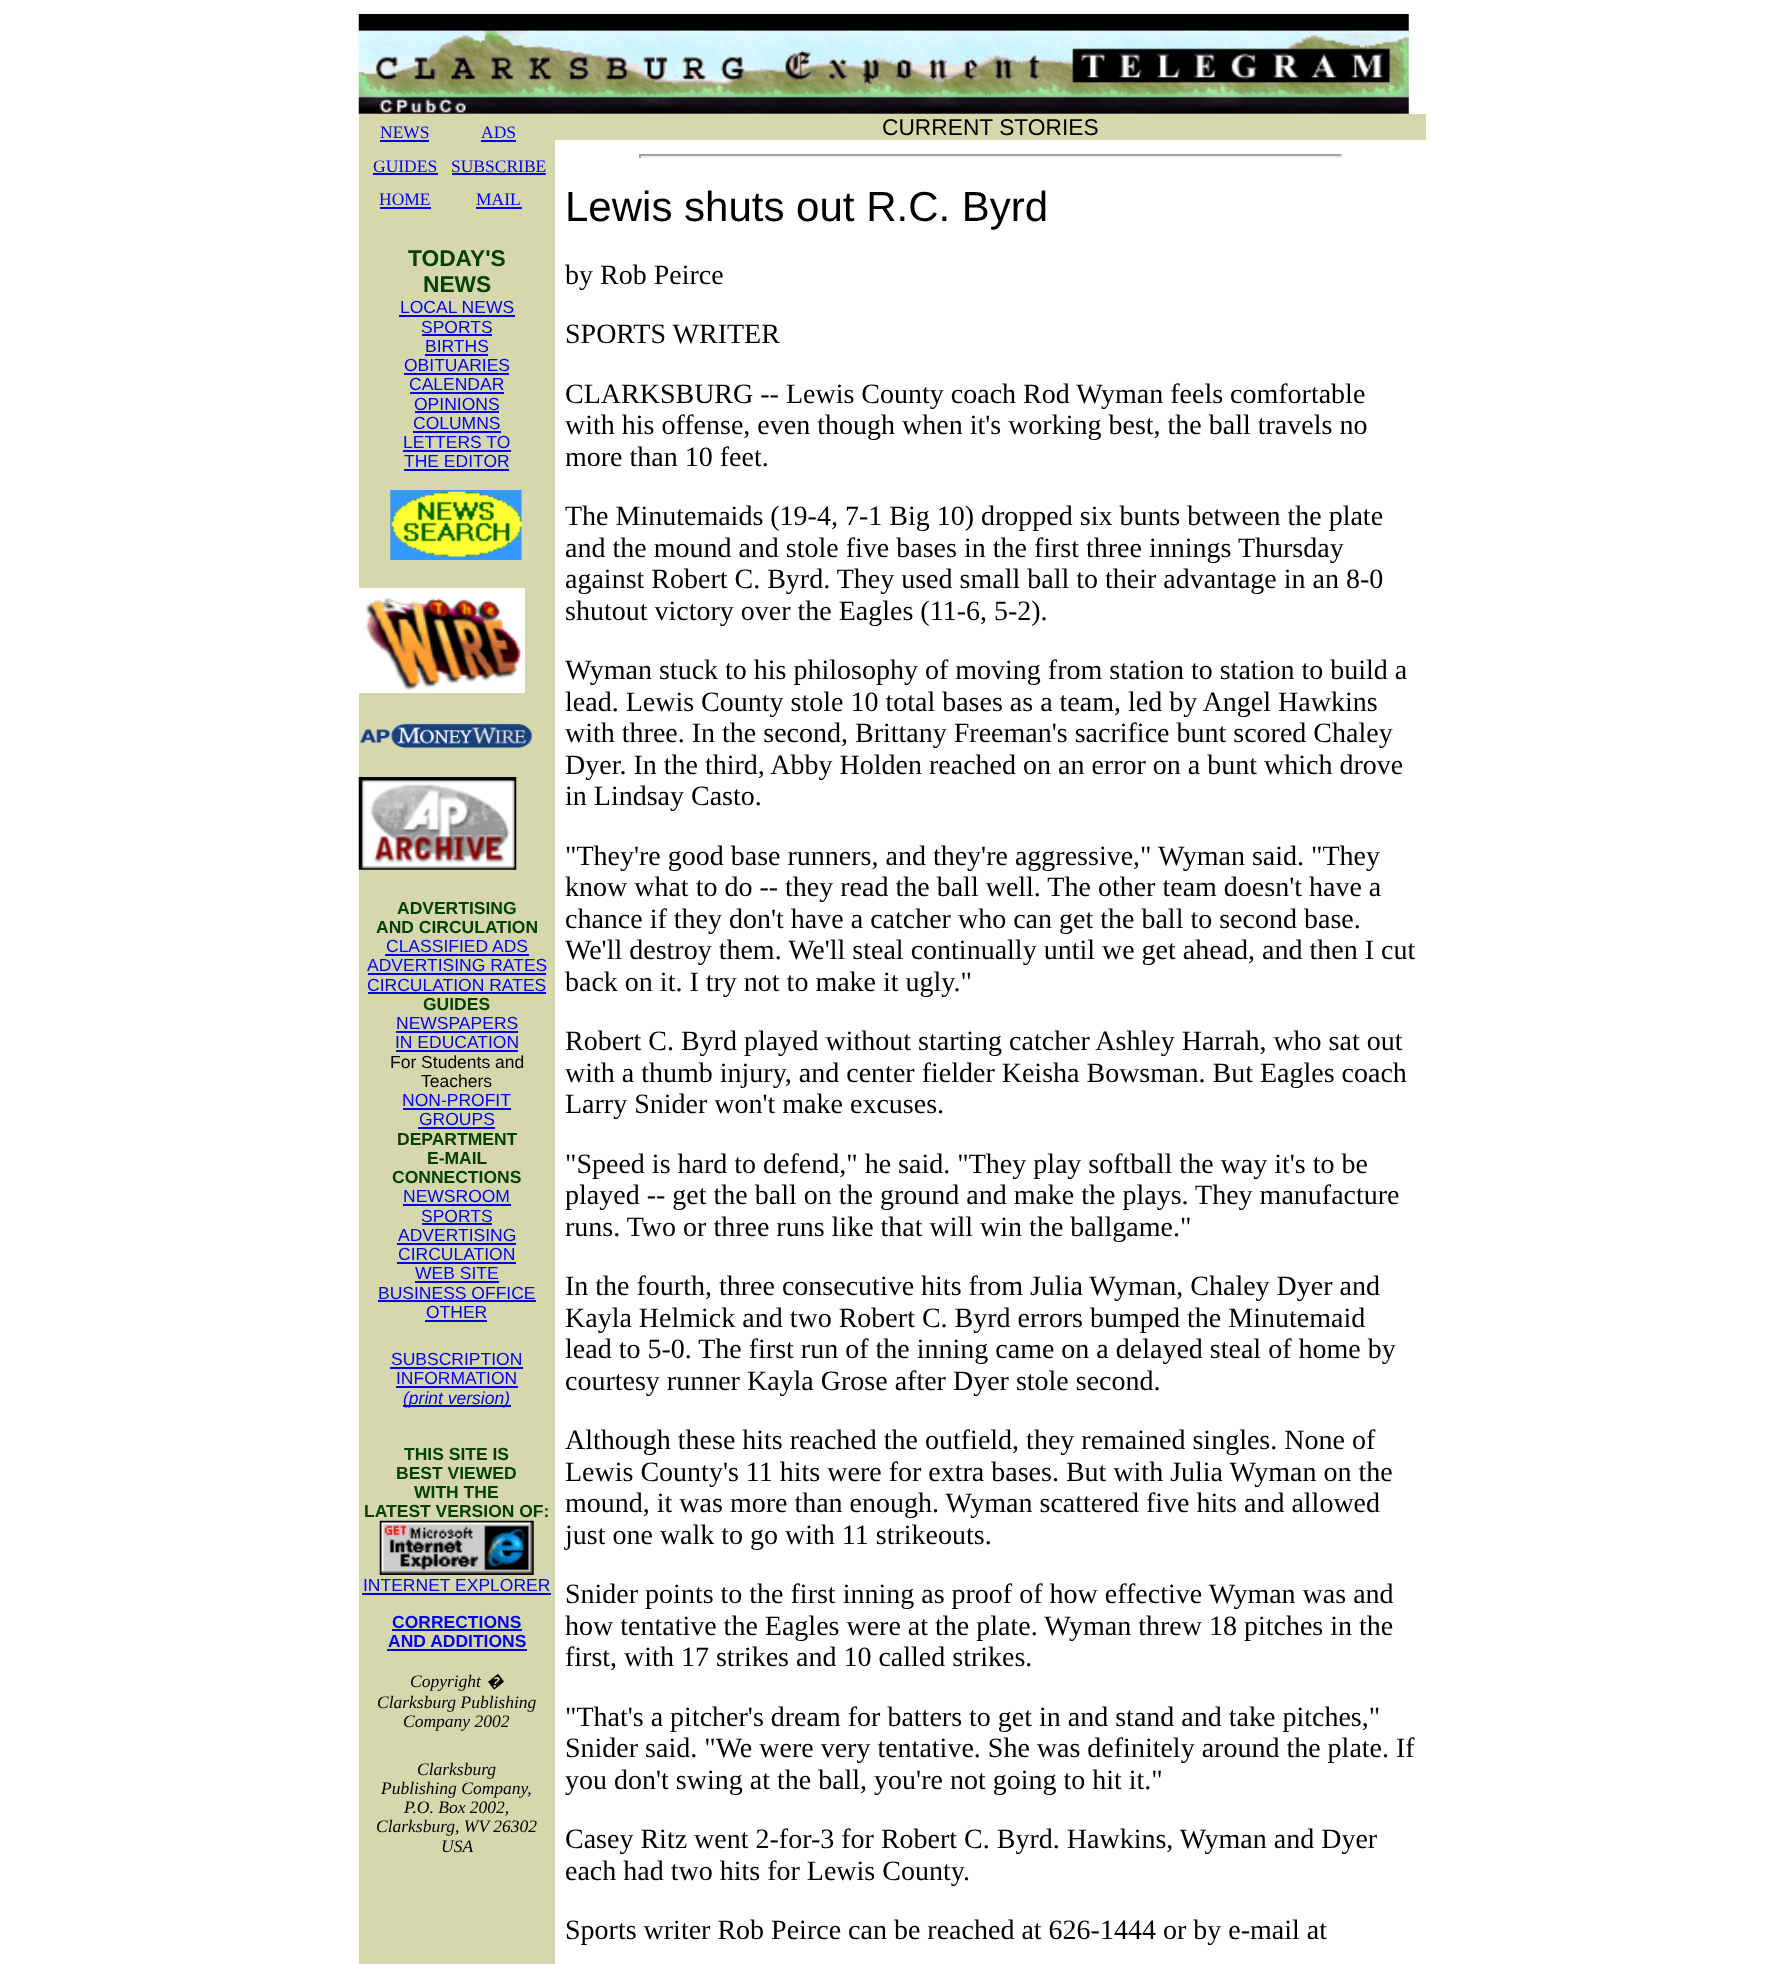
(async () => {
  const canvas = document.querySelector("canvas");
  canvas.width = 1785;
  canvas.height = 1964;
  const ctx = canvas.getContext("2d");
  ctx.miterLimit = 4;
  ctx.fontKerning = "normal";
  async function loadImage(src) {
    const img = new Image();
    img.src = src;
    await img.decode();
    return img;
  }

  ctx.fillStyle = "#ffffff";
  ctx.fillRect(0, 0, 1785, 1964);
  ctx.drawImage(await loadImage("img/1.png"), 358, 14, 1051, 100);
  for (const [x, y, w, h, color] of [
    [359, 114, 196, 1850, "#d7d7ae"],
    [380, 140, 49, 2, "#0000ee"],
    [481, 140, 35, 2, "#0000ee"],
    [373, 173, 65, 2, "#0000ee"],
    [452, 173, 94, 2, "#0000ee"],
    [380, 207, 51, 2, "#0000ee"],
    [476, 207, 46, 2, "#0000ee"],
    [399, 315, 116, 2, "#0000ee"],
    [422, 334, 70, 2, "#0000ee"],
    [425, 354, 63, 2, "#0000ee"],
    [404, 373, 105, 2, "#0000ee"],
    [410, 392, 94, 2, "#0000ee"],
    [415, 411, 84, 2, "#0000ee"],
    [413, 431, 88, 2, "#0000ee"],
    [403, 450, 108, 2, "#0000ee"],
    [404, 469, 105, 2, "#0000ee"],
  ]) {
    ctx.fillStyle = color;
    ctx.fillRect(x, y, w, h);
  }
  ctx.drawImage(await loadImage("img/2.png"), 390, 490, 132, 70);
  ctx.drawImage(await loadImage("img/3.png"), 359, 588, 166, 105);
  ctx.drawImage(await loadImage("img/4.png"), 359, 723, 173, 26);
  ctx.drawImage(await loadImage("img/5.png"), 358, 777, 159, 93);
  for (const [x, y, w, h, color] of [
    [385, 954, 144, 2, "#0000ee"],
    [368, 973, 178, 2, "#0000ee"],
    [368, 992, 178, 2, "#0000ee"],
    [396, 1031, 122, 2, "#0000ee"],
    [396, 1050, 122, 2, "#0000ee"],
    [403, 1108, 108, 2, "#0000ee"],
    [418, 1127, 77, 2, "#0000ee"],
    [403, 1204, 108, 2, "#0000ee"],
    [422, 1223, 70, 2, "#0000ee"],
    [397, 1243, 119, 2, "#0000ee"],
    [397, 1262, 119, 2, "#0000ee"],
    [415, 1281, 84, 2, "#0000ee"],
    [378, 1300, 158, 2, "#0000ee"],
    [425, 1320, 62, 2, "#0000ee"],
    [390, 1367, 133, 2, "#0000ee"],
    [396, 1386, 122, 2, "#0000ee"],
    [403, 1405, 108, 2, "#0000ee"],
  ]) {
    ctx.fillStyle = color;
    ctx.fillRect(x, y, w, h);
  }
  ctx.drawImage(await loadImage("img/6.png"), 379, 1520, 155, 55);
  for (const [x, y, w, h, color] of [
    [362, 1593, 189, 2, "#0000ee"],
    [392, 1629, 130, 2, "#0000ee"],
    [387, 1649, 140, 2, "#0000ee"],
    [555, 114, 871, 26, "#d7d7ae"],
    [639, 154, 703, 2, "#9f9f9f"],
    [1341, 154, 2, 4, "#eeeeee"],
    [639, 156, 703, 2, "#eeeeee"],
    [639, 154, 2, 4, "#9f9f9f"],
  ]) {
    ctx.fillStyle = color;
    ctx.fillRect(x, y, w, h);
  }
  ctx.font = "17.5px Liberation Serif";
  ctx.fillStyle = "#0000ee";
  for (const [text, x, y] of [
    ["NEWS", 380, 138],
    ["ADS", 481, 138],
    ["GUIDES", 373, 172],
    ["SUBSCRIBE", 451, 172],
    ["HOME", 379, 205],
    ["MAIL", 476, 205],
  ]) {
    ctx.fillText(text, x, y);
  }
  ctx.font = "bold 22.75px Liberation Sans";
  ctx.fillStyle = "#004000";
  ctx.fillText("TODAY'S", 408, 266);
  ctx.fillText("NEWS", 423, 292);
  ctx.font = "17.5px Liberation Sans";
  ctx.fillStyle = "#0000ee";
  for (const [text, x, y] of [
    ["LOCAL NEWS", 400, 313],
    ["SPORTS", 421, 333],
    ["BIRTHS", 425, 352],
    ["OBITUARIES", 404, 371],
    ["CALENDAR", 409, 390],
    ["OPINIONS", 414, 410],
    ["COLUMNS", 413, 429],
    ["LETTERS TO", 403, 448],
    ["THE EDITOR", 404, 467],
  ]) {
    ctx.fillText(text, x, y);
  }
  ctx.font = "bold 17.5px Liberation Sans";
  ctx.fillStyle = "#004000";
  ctx.fillText("ADVERTISING", 397, 914);
  ctx.fillText("AND CIRCULATION", 376, 933);
  ctx.font = "17.5px Liberation Sans";
  ctx.fillStyle = "#0000ee";
  for (const [text, x, y] of [
    ["CLASSIFIED", 386, 952],
    ["ADS", 492, 952],
    ["ADVERTISING RATES", 367, 971],
    ["CIRCULATION RATES", 367, 991],
  ]) {
    ctx.fillText(text, x, y);
  }
  ctx.font = "bold 17.5px Liberation Sans";
  ctx.fillStyle = "#004000";
  ctx.fillText("GUIDES", 423, 1010);
  ctx.font = "17.5px Liberation Sans";
  ctx.fillStyle = "#0000ee";
  ctx.fillText("NEWSPAPERS", 396, 1029);
  ctx.fillText("IN EDUCATION", 395, 1048);
  ctx.fillStyle = "#000000";
  ctx.fillText("For Students and", 390, 1068);
  ctx.fillText("Teachers", 421, 1087);
  ctx.fillStyle = "#0000ee";
  ctx.fillText("NON-PROFIT", 402, 1106);
  ctx.fillText("GROUPS", 419, 1125);
  ctx.font = "bold 17.5px Liberation Sans";
  ctx.fillStyle = "#004000";
  for (const [text, x, y] of [
    ["DEPARTMENT", 397, 1145],
    ["E-MAIL", 427, 1164],
    ["CONNECTIONS", 392, 1183],
  ]) {
    ctx.fillText(text, x, y);
  }
  ctx.font = "17.5px Liberation Sans";
  ctx.fillStyle = "#0000ee";
  for (const [text, x, y] of [
    ["NEWSROOM", 403, 1202],
    ["SPORTS", 421, 1222],
    ["ADVERTISING", 398, 1241],
    ["CIRCULATION", 398, 1260],
    ["WEB SITE", 415, 1279],
    ["BUSINESS OFFICE", 378, 1299],
    ["OTHER", 426, 1318],
    ["SUBSCRIPTION", 391, 1365],
    ["INFORMATION", 396, 1384],
  ]) {
    ctx.fillText(text, x, y);
  }
  ctx.font = "italic 17.5px Liberation Sans";
  ctx.fillText("(print version)", 403, 1404);
  ctx.font = "bold 17.5px Liberation Sans";
  ctx.fillStyle = "#004000";
  for (const [text, x, y] of [
    ["THIS SITE IS", 404, 1460],
    ["BEST VIEWED", 396, 1479],
    ["WITH THE", 414, 1498],
    ["LATEST VERSION OF:", 364, 1517],
  ]) {
    ctx.fillText(text, x, y);
  }
  ctx.font = "17.5px Liberation Sans";
  ctx.fillStyle = "#0000ee";
  ctx.fillText("INTERNET EXPLORER", 363, 1591);
  ctx.font = "bold 17.5px Liberation Sans";
  ctx.fillText("CORRECTIONS", 392, 1628);
  ctx.fillText("AND ADDITIONS", 388, 1647);
  ctx.font = "italic 17.5px Liberation Serif";
  ctx.fillStyle = "#000000";
  ctx.fillText("Copyright", 410, 1687);
  ctx.font = "italic 17.5px Noto Sans";
  ctx.fillText("�", 486, 1687);
  ctx.font = "italic 17.5px Liberation Serif";
  for (const [text, x, y] of [
    ["Clarksburg Publishing", 377, 1708],
    ["Company 2002", 403, 1727],
    ["Clarksburg", 417, 1775],
    ["Publishing Company,", 381, 1794],
    ["P.O. Box 2002,", 404, 1813],
    ["Clarksburg, WV 26302", 376, 1832],
    ["USA", 441, 1852],
  ]) {
    ctx.fillText(text, x, y);
  }
  ctx.font = "22.75px Liberation Sans";
  ctx.fillText("CURRENT STORIES", 882, 135);
  ctx.font = "42px Liberation Sans";
  ctx.fillText("Lewis shuts out R.C. Byrd", 565, 221);
  ctx.font = "28px Liberation Serif";
  for (const [text, x, y] of [
    ["by Rob Peirce", 565, 284],
    ["SPORTS WRITER", 565, 343],
    ["CLARKSBURG -- Lewis County coach Rod Wyman feels comfortable", 565, 403],
    ["with his offense, even though when it's working best, the ball travels no", 565, 434],
    ["more than 10 feet.", 565, 466],
    ["The Minutemaids (19-4, 7-1 Big 10) dropped six bunts between the plate", 565, 525],
    ["and the mound and stole five bases in the first three innings Thursday", 565, 557],
    ["against Robert C. Byrd. They used small ball to their advantage in an 8-0", 565, 588],
    ["shutout victory over the Eagles (11-6, 5-2).", 565, 620],
    ["Wyman stuck to his philosophy of moving from station to station to build a", 565, 679],
    ["lead. Lewis County stole 10 total bases as a team, led by Angel Hawkins", 565, 711],
    ["with three. In the second, Brittany Freeman's sacrifice bunt scored Chaley", 565, 742],
    ["Dyer. In the third, Abby Holden reached on an error on a bunt which drove", 565, 774],
    ["in Lindsay Casto.", 565, 805],
    ["\"They're good base runners, and they're aggressive,\" Wyman said. \"They", 565, 865],
    ["know what to do -- they read the ball well. The other team doesn't have a", 565, 896],
    ["chance if they don't have a catcher who can get the ball to second base.", 565, 928],
    ["We'll destroy them. We'll steal continually until we get ahead, and then I cut", 565, 959],
    ["back on it. I try not to make it ugly.\"", 565, 991],
    ["Robert C. Byrd played without starting catcher Ashley Harrah, who sat out", 565, 1050],
    ["with a thumb injury, and center fielder Keisha Bowsman. But Eagles coach", 565, 1082],
    ["Larry Snider won't make excuses.", 565, 1113],
    ["\"Speed is hard to defend,\" he said. \"They play softball the way it's to be", 565, 1173],
    ["played -- get the ball on the ground and make the plays. They manufacture", 565, 1204],
    ["runs. Two or three runs like that will win the ballgame.\"", 565, 1236],
    ["In the fourth, three consecutive hits from Julia Wyman, Chaley Dyer and", 565, 1295],
    ["Kayla Helmick and two Robert C. Byrd errors bumped the Minutemaid", 565, 1327],
    ["lead to 5-0. The first run of the inning came on a delayed steal of home by", 565, 1358],
    ["courtesy runner Kayla Grose after Dyer stole second.", 565, 1390],
    ["Although these hits reached the outfield, they remained singles. None of", 565, 1449],
    ["Lewis County's 11 hits were for extra bases. But with Julia Wyman on the", 565, 1481],
    ["mound, it was more than enough. Wyman scattered five hits and allowed", 565, 1512],
    ["just one walk to go with 11 strikeouts.", 565, 1544],
    ["Snider points to the first inning as proof of how effective Wyman was and", 565, 1603],
    ["how tentative the Eagles were at the plate. Wyman threw 18 pitches in the", 565, 1635],
    ["first, with 17 strikes and 10 called strikes.", 565, 1666],
    ["\"That's a pitcher's dream for batters to get in and stand and take pitches,\"", 565, 1726],
    ["Snider said. \"We were very tentative. She was definitely around the plate. If", 565, 1757],
    ["you don't swing at the ball, you're not going to hit it.\"", 565, 1789],
    ["Casey Ritz went 2-for-3 for Robert C. Byrd. Hawkins, Wyman and Dyer", 565, 1848],
    ["each had two hits for Lewis County.", 565, 1880],
    ["Sports writer Rob Peirce can be reached at 626-1444 or by e-mail at", 565, 1939],
  ]) {
    ctx.fillText(text, x, y);
  }
})();
